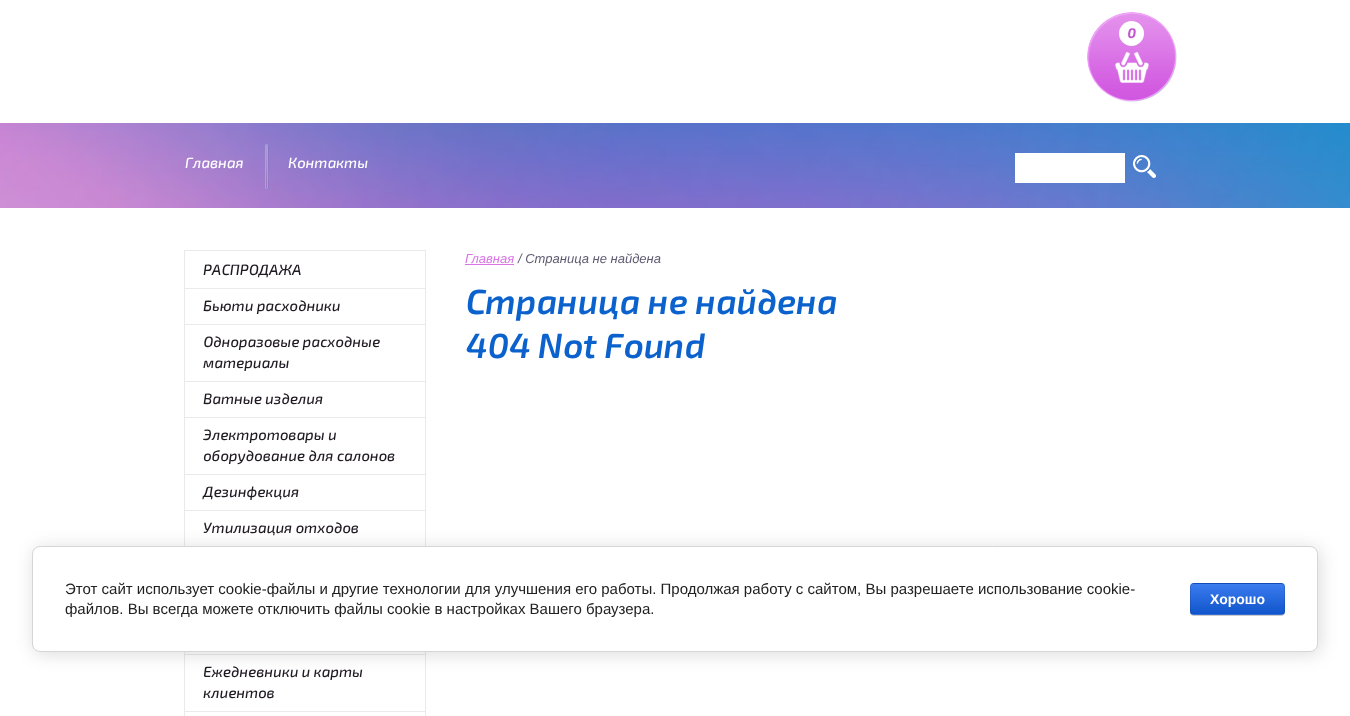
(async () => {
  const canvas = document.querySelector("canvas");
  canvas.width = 1350;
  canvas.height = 716;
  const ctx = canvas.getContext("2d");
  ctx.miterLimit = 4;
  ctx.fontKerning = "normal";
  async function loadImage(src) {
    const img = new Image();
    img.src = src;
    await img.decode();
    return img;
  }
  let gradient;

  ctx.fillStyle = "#ffffff";
  ctx.fillRect(0, 0, 1350, 716);
  ctx.drawImage(await loadImage("img/1.png"), 1087, 12, 90, 90);
  ctx.beginPath();
  ctx.arc(1131.5, 33.5, 12.5, 0, Math.PI * 2);
  ctx.fill();
  ctx.drawImage(await loadImage("img/2.png"), 0, 123, 1350, 85);
  ctx.drawImage(await loadImage("img/3.png"), 265, 144, 4, 45);
  ctx.fillRect(1015, 153, 110, 30);
  ctx.drawImage(await loadImage("img/4.png"), 1133, 155, 23, 23);
  ctx.strokeStyle = "#e9eaeb";
  ctx.strokeRect(184.5, 250.5, 241, 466);
  for (const [x, y, w, h, color] of [
    [185, 288, 240, 1, "#e9eaeb"],
    [185, 324, 240, 1, "#e9eaeb"],
    [185, 381, 240, 1, "#e9eaeb"],
    [185, 417, 240, 1, "#e9eaeb"],
    [185, 474, 240, 1, "#e9eaeb"],
    [185, 510, 240, 1, "#e9eaeb"],
    [185, 654, 240, 1, "#e9eaeb"],
    [185, 711, 240, 1, "#e9eaeb"],
    [465, 264, 49, 1, "#da73e6"],
  ]) {
    ctx.fillStyle = color;
    ctx.fillRect(x, y, w, h);
  }
  ctx.fillStyle = "rgba(0, 0, 0, 0.14)";
  ctx.filter = "blur(9px)";
  ctx.beginPath();
  ctx.roundRect(34, 548, 1286, 106, 8);
  ctx.fill();
  ctx.filter = "none";
  ctx.fillStyle = "#ffffff";
  ctx.beginPath();
  ctx.roundRect(32.5, 546.5, 1285, 105, 7.5);
  ctx.fill();
  ctx.strokeStyle = "#d6d6d6";
  ctx.stroke();
  ctx.fillStyle = "rgba(0, 0, 0, 0.2)";
  ctx.filter = "blur(0.5px)";
  ctx.beginPath();
  ctx.roundRect(1190, 584, 95, 32, 4);
  ctx.fill();
  ctx.filter = "none";
  ctx.save();
  ctx.beginPath();
  ctx.roundRect(1190, 583, 95, 32, 4);
  ctx.clip();
  gradient = ctx.createLinearGradient(1238, 554, 1238, 584);
  gradient.addColorStop(0, "#3b7cef");
  gradient.addColorStop(1, "#1155cc");
  ctx.fillStyle = gradient;
  ctx.fillRect(1190, 583, 95, 1);
  gradient = ctx.createLinearGradient(1238, 584, 1238, 614);
  gradient.addColorStop(0, "#3b7cef");
  gradient.addColorStop(1, "#1155cc");
  ctx.fillStyle = gradient;
  ctx.fillRect(1190, 584, 95, 30);
  gradient = ctx.createLinearGradient(1238, 614, 1238, 644);
  gradient.addColorStop(0, "#3b7cef");
  gradient.addColorStop(1, "#1155cc");
  ctx.fillStyle = gradient;
  ctx.fillRect(1190, 614, 95, 1);
  ctx.restore();
  ctx.beginPath();
  ctx.roundRect(1190.5, 583.5, 94, 31, 3.5);
  ctx.strokeStyle = "rgba(0, 0, 0, 0.1)";
  ctx.stroke();
  ctx.font = "italic bold 14px 'Exo 2'";
  ctx.fillStyle = "#c253cf";
  ctx.fillText("0", 1127, 38);
  ctx.font = "italic 500 15px 'Exo 2'";
  ctx.fillStyle = "#ffffff";
  ctx.fillText("Главная", 185, 168);
  ctx.fillText("Контакты", 288, 168);
  ctx.fillStyle = "#201a23";
  for (const [text, x, y] of [
    ["РАСПРОДАЖА", 203, 275],
    ["Бьюти расходники", 203, 311],
    ["Одноразовые расходные", 203, 347],
    ["материалы", 203, 368],
    ["Ватные изделия", 203, 404],
    ["Электротовары и", 203, 440],
    ["оборудование для салонов", 203, 461],
    ["Дезинфекция", 203, 497],
    ["Утилизация отходов", 203, 533],
    ["Ежедневники и карты", 203, 677],
    ["клиентов", 203, 698],
  ]) {
    ctx.fillText(text, x, y);
  }
  ctx.font = "italic 13px Liberation Sans";
  ctx.fillStyle = "#da73e6";
  ctx.fillText("Главная", 465, 263);
  ctx.fillStyle = "#5e5b71";
  ctx.fillText("/ Страница не найдена", 518, 263);
  ctx.font = "italic 600 35px 'Exo 2'";
  ctx.fillStyle = "#0c62cd";
  ctx.fillText("Страница не найдена", 465, 314);
  ctx.fillText("404 Not Found", 465, 358);
  ctx.font = "15px Liberation Sans";
  ctx.fillStyle = "#212121";
  ctx.fillText("Этот сайт использует cookie-файлы и другие технологии для улучшения его работы. Продолжая работу с сайтом, Вы разрешаете использование cookie-", 65, 594);
  ctx.fillText("файлов. Вы всегда можете отключить файлы cookie в настройках Вашего браузера.", 65, 614);
  ctx.font = "bold 14px Liberation Sans";
  ctx.fillStyle = "#ffffff";
  ctx.fillText("Хорошо", 1210, 604);
})();
